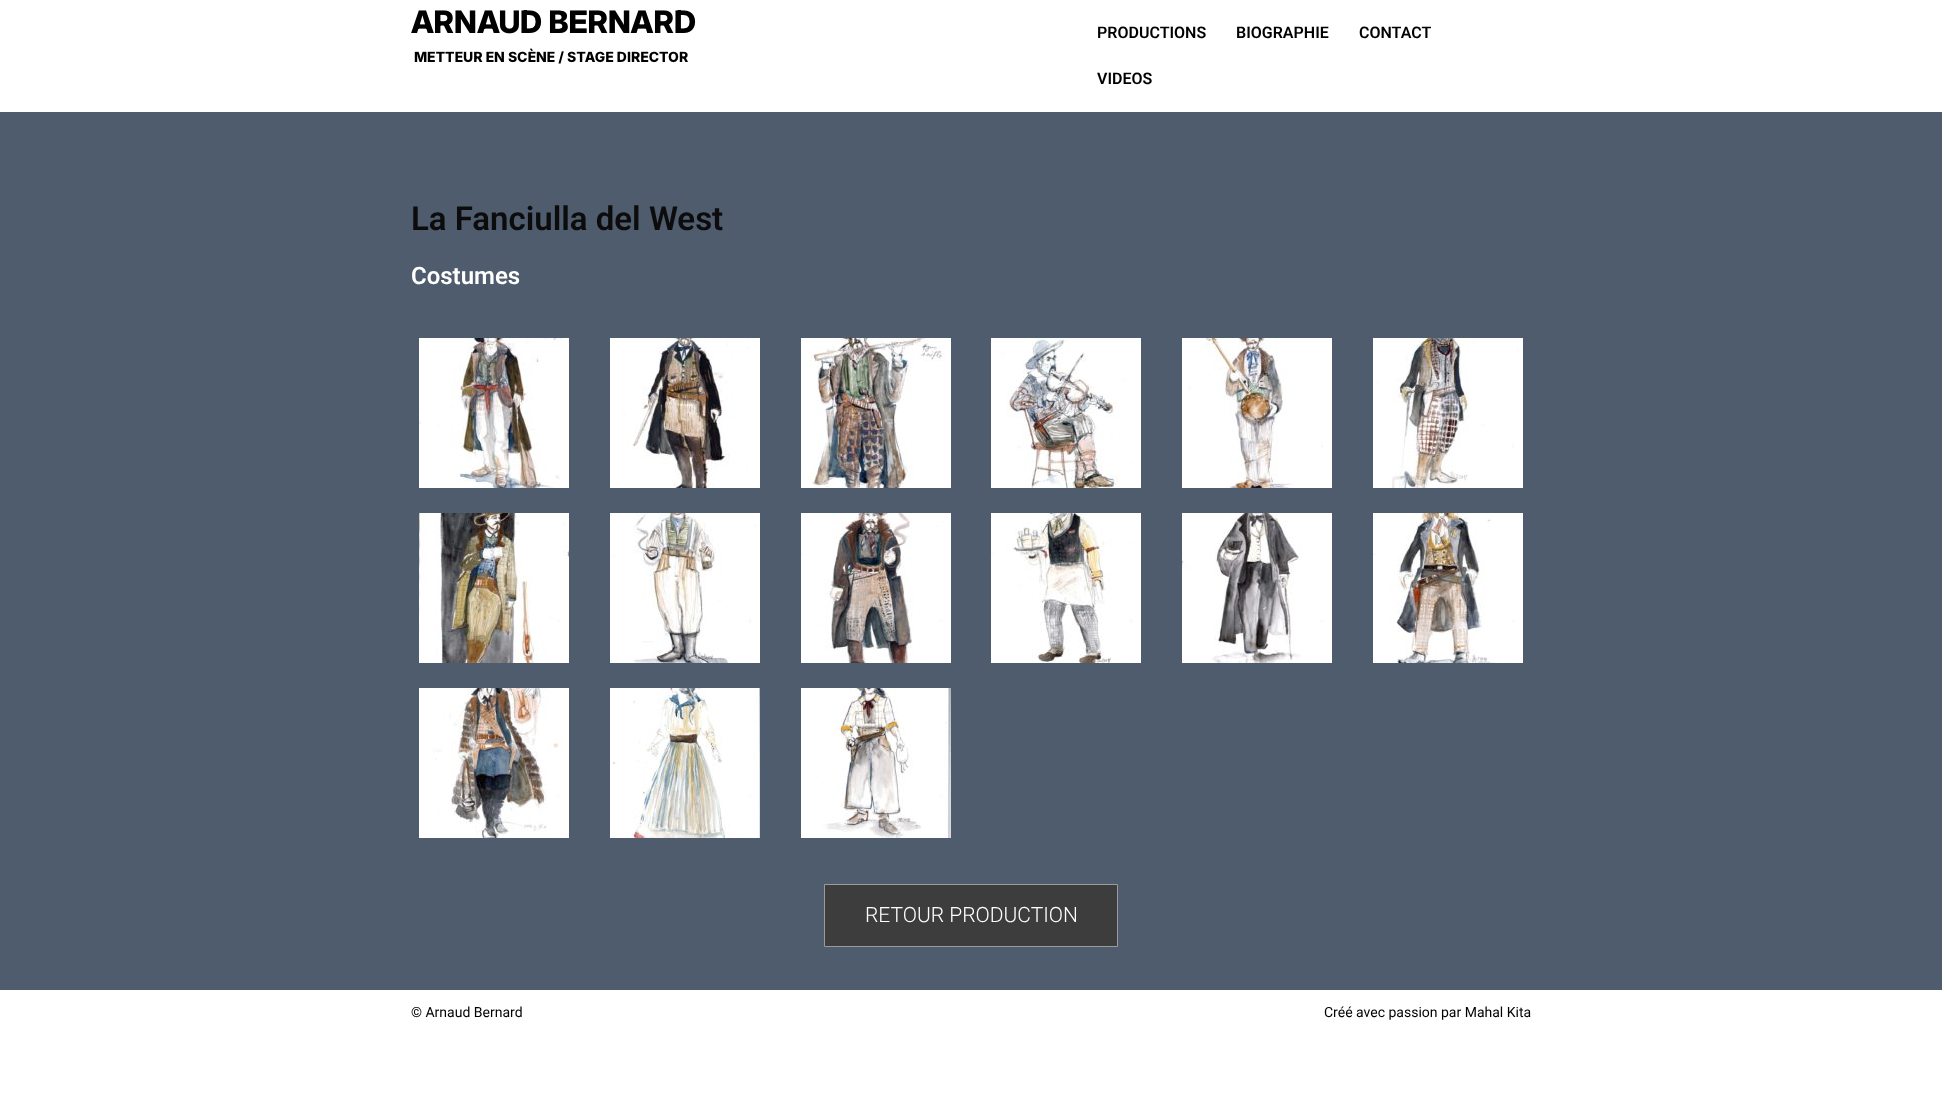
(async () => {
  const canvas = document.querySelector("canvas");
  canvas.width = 1942;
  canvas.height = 1120;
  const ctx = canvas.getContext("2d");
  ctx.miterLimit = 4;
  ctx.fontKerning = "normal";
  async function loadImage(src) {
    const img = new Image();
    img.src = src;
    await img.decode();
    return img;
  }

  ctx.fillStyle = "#ffffff";
  ctx.fillRect(0, 0, 1942, 1120);
  ctx.drawImage(await loadImage("img/1.png"), 411, 10, 285, 54);
  ctx.fillStyle = "#4e5c6d";
  ctx.fillRect(0, 112, 1942, 878);
  ctx.drawImage(await loadImage("img/2.png"), 419, 338, 150, 150);
  ctx.drawImage(await loadImage("img/3.png"), 610, 338, 150, 150);
  ctx.drawImage(await loadImage("img/4.png"), 801, 338, 150, 150);
  ctx.drawImage(await loadImage("img/5.png"), 991, 338, 150, 150);
  ctx.drawImage(await loadImage("img/6.png"), 1182, 338, 150, 150);
  ctx.drawImage(await loadImage("img/7.png"), 1373, 338, 150, 150);
  ctx.drawImage(await loadImage("img/8.png"), 419, 513, 150, 150);
  ctx.drawImage(await loadImage("img/9.png"), 610, 513, 150, 150);
  ctx.drawImage(await loadImage("img/10.png"), 801, 513, 150, 150);
  ctx.drawImage(await loadImage("img/11.png"), 991, 513, 150, 150);
  ctx.drawImage(await loadImage("img/12.png"), 1182, 513, 150, 150);
  ctx.drawImage(await loadImage("img/13.png"), 1373, 513, 150, 150);
  ctx.drawImage(await loadImage("img/14.png"), 419, 688, 150, 150);
  ctx.drawImage(await loadImage("img/15.png"), 610, 688, 150, 150);
  ctx.drawImage(await loadImage("img/16.png"), 801, 688, 150, 150);
  ctx.fillStyle = "#3d3d3d";
  ctx.beginPath();
  ctx.rect(824.5, 884.5, 293, 62);
  ctx.fill();
  ctx.strokeStyle = "#9b9b9b";
  ctx.stroke();
  ctx.font = "600 16px Roboto";
  ctx.fillStyle = "#000000";
  for (const [text, x, y] of [
    ["PRODUCTIONS", 1097, 38],
    ["BIOGRAPHIE", 1236, 38],
    ["CONTACT", 1359, 38],
    ["VIDEOS", 1097, 84],
  ]) {
    ctx.fillText(text, x, y);
  }
  ctx.font = "600 33px Roboto";
  ctx.fillStyle = "#0c0c0c";
  ctx.fillText("La Fanciulla del West", 411, 230);
  ctx.font = "600 24px Roboto";
  ctx.fillStyle = "#ffffff";
  ctx.fillText("Costumes", 411, 284);
  ctx.font = "300 21px Roboto";
  ctx.fillText("RETOUR PRODUCTION", 865, 922);
  ctx.font = "14px Roboto";
  ctx.fillStyle = "#000000";
  ctx.fillText("© Arnaud Bernard", 411, 1017);
  ctx.fillText("Créé avec passion par Mahal Kita", 1324, 1017);
})();
